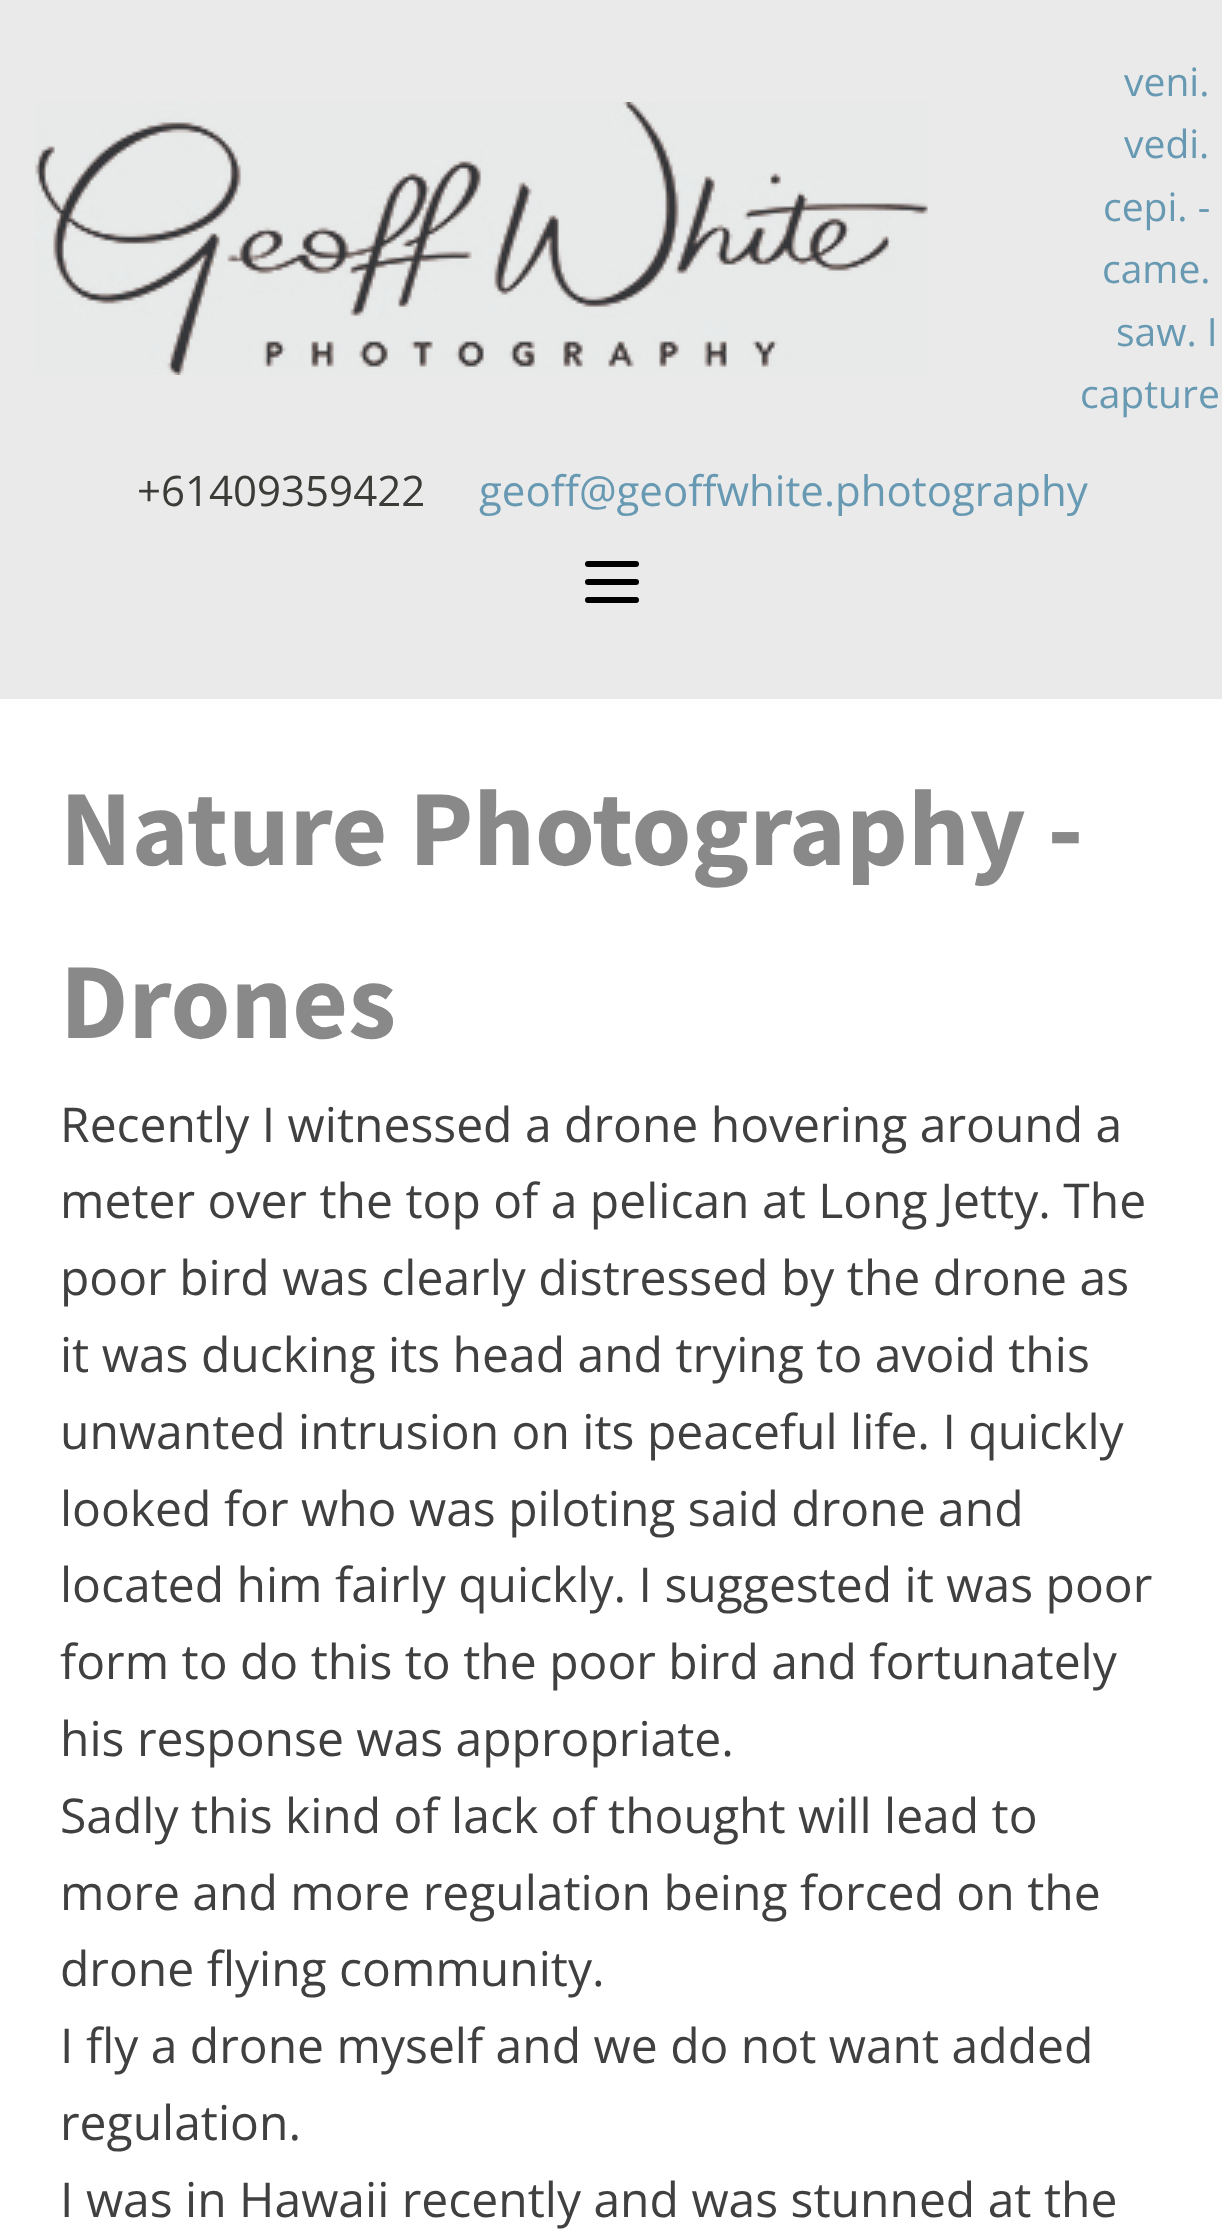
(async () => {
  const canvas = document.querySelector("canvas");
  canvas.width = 1222;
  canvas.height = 2231;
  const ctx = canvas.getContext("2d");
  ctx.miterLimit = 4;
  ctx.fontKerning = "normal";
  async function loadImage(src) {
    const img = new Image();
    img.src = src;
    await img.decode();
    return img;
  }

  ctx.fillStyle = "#ffffff";
  ctx.fillRect(0, 0, 1222, 2231);
  ctx.fillStyle = "#eaeaea";
  ctx.fillRect(0, 0, 1222, 699);
  ctx.drawImage(await loadImage("img/1.png"), 34, 102, 894, 273);
  ctx.fillStyle = "#000000";
  ctx.beginPath();
  ctx.roundRect(585, 561, 54, 6, 3);
  ctx.fill();
  ctx.beginPath();
  ctx.roundRect(585, 579, 54, 6, 3);
  ctx.fill();
  ctx.beginPath();
  ctx.roundRect(585, 597, 54, 6, 3);
  ctx.fill();
  ctx.font = "39px Open Sans";
  ctx.fillStyle = "#6799b2";
  for (const [text, x, y] of [
    ["veni.", 1124, 96],
    ["vedi.", 1124, 158],
    ["cepi. -", 1103, 221],
    ["came.", 1102, 283],
    ["saw. I", 1116, 346],
    ["capture", 1080, 408],
  ]) {
    ctx.fillText(text, x, y);
  }
  ctx.font = "42px Open Sans";
  ctx.fillStyle = "#3b3c38";
  ctx.fillText("+61409359422", 137, 506);
  ctx.fillStyle = "#6799b2";
  ctx.fillText("geoff@geoffwhite.photography", 479, 506);
  ctx.font = "bold 108px Source Sans Pro";
  ctx.fillStyle = "#898989";
  ctx.fillText("Nature Photography -", 60, 865);
  ctx.fillText("Drones", 60, 1038);
  ctx.font = "48px Open Sans";
  ctx.fillStyle = "#404040";
  for (const [text, x, y] of [
    ["Recently I witnessed a drone hovering around a", 60, 1142],
    ["meter over the top of a pelican at Long Jetty. The", 60, 1218],
    ["poor bird was clearly distressed by the drone as", 60, 1295],
    ["it was ducking its head and trying to avoid this", 60, 1372],
    ["unwanted intrusion on its peaceful life. I quickly", 60, 1449],
    ["looked for who was piloting said drone and", 60, 1526],
    ["located him fairly quickly. I suggested it was poor", 60, 1602],
    ["form to do this to the poor bird and fortunately", 60, 1679],
    ["his response was appropriate.", 60, 1756],
    ["Sadly this kind of lack of thought will lead to", 60, 1833],
    ["more and more regulation being forced on the", 60, 1910],
    ["drone flying community.", 60, 1986],
    ["I fly a drone myself and we do not want added", 60, 2063],
    ["regulation.", 60, 2140],
    ["I was in Hawaii recently and was stunned at the", 60, 2217],
  ]) {
    ctx.fillText(text, x, y);
  }
})();
